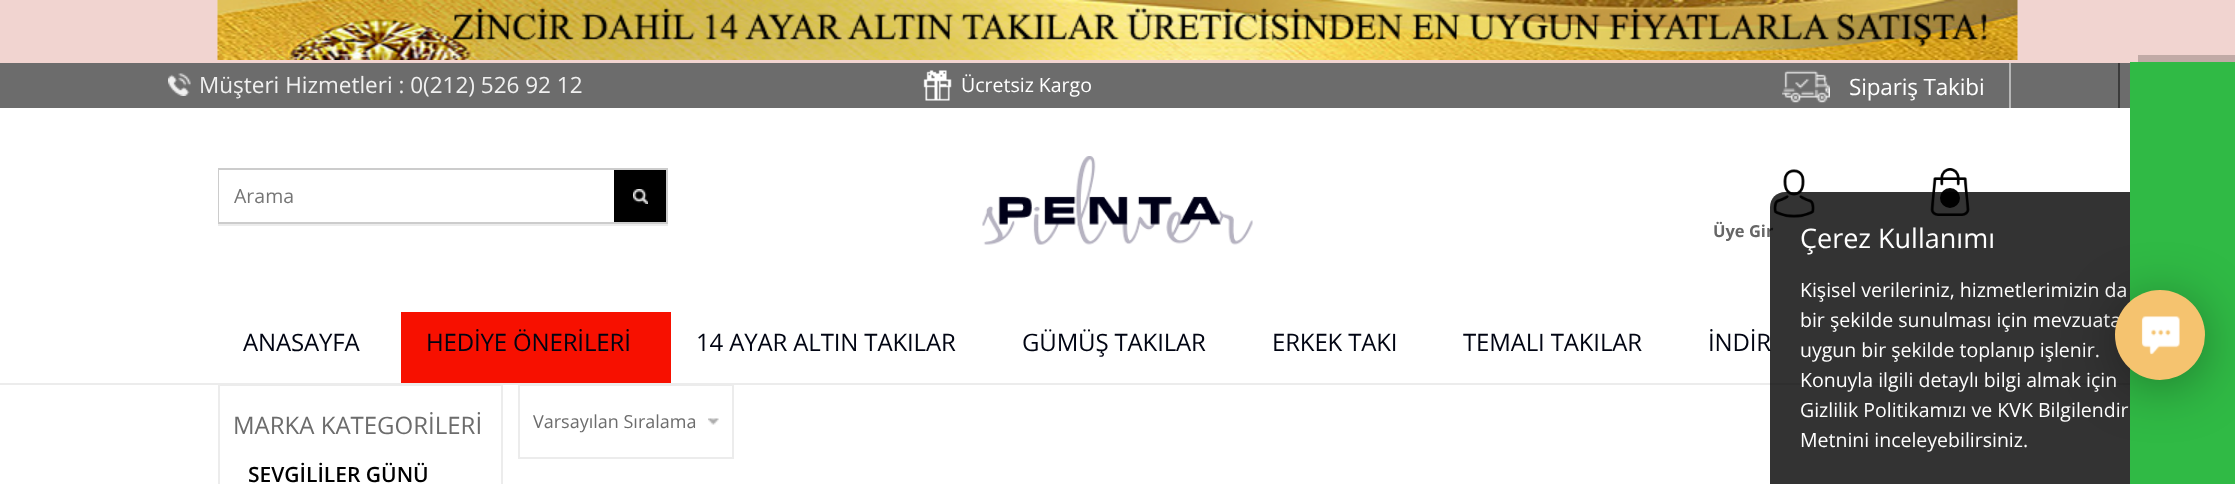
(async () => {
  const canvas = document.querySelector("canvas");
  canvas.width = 2235;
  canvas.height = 484;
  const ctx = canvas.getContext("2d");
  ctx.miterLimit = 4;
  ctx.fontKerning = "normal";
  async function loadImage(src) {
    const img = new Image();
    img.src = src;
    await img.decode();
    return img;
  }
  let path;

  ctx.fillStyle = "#ffffff";
  ctx.fillRect(0, 0, 2235, 484);
  ctx.fillStyle = "#f1d4d0";
  ctx.fillRect(0, 0, 2235, 63);
  ctx.drawImage(await loadImage("img/1.png"), 217, 0, 1801, 60);
  ctx.fillStyle = "#6c6c6c";
  ctx.fillRect(0, 63, 2130, 45);
  ctx.fillStyle = "#b6b6b6";
  ctx.fillRect(2009, 63, 2, 45);
  ctx.drawImage(await loadImage("img/2.png"), 168, 73, 23, 23);
  ctx.drawImage(await loadImage("img/3.png"), 923, 70, 29, 31);
  ctx.drawImage(await loadImage("img/4.png"), 1782, 70, 48, 33);
  ctx.fillStyle = "#3b3b3b";
  ctx.fillRect(2118, 63, 2, 45);
  ctx.strokeStyle = "#cccccc";
  ctx.lineWidth = 2;
  ctx.strokeRect(219, 169, 448, 54);
  ctx.fillStyle = "#ffffff";
  ctx.fillRect(219, 170, 1, 52);
  ctx.fillStyle = "#000000";
  ctx.fillRect(614, 170, 52, 52);
  ctx.drawImage(await loadImage("img/5.png"), 633, 189, 15, 15);
  ctx.fillStyle = "#ececec";
  ctx.fillRect(218, 224, 450, 2);
  ctx.drawImage(await loadImage("img/6.png"), 982, 156, 271, 89);
  ctx.drawImage(await loadImage("img/7.png"), 1930, 168, 40, 48);
  ctx.fillStyle = "#080808";
  ctx.beginPath();
  ctx.arc(1950, 198, 11, 0, Math.PI * 2);
  ctx.fill();
  ctx.strokeStyle = "#ffffff";
  ctx.stroke();
  ctx.drawImage(await loadImage("img/8.png"), 1773, 169, 42, 49);
  ctx.fillStyle = "#ececec";
  ctx.fillRect(0, 383, 2130, 2);
  ctx.fillStyle = "#f71000";
  ctx.fillRect(401, 312, 270, 71);
  ctx.strokeStyle = "#ececec";
  ctx.strokeRect(219, 385, 283, 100);
  ctx.strokeRect(519, 385, 214, 73);
  ctx.drawImage(await loadImage("img/9.png"), 708, 418, 11, 7);
  ctx.fillStyle = "#c1aaa6";
  path = new Path2D("M2138 55V62H2235V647H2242V55Z");
  ctx.fill(path);
  ctx.font = "22.5px Open Sans";
  ctx.fillStyle = "#f0f0f0";
  ctx.fillText("Müşteri Hizmetleri : 0(212) 526 92 12", 199, 93);
  ctx.font = "19.5px Open Sans";
  ctx.fillStyle = "#ffffff";
  ctx.fillText("Ücretsiz Kargo", 961, 92);
  ctx.letterSpacing = "-0.15px";
  ctx.font = "22.5px Open Sans";
  ctx.fillText("Sipariş Takibi", 1849, 95);
  ctx.letterSpacing = "0px";
  ctx.font = "19.5px Open Sans";
  ctx.fillStyle = "#757575";
  ctx.fillText("Arama", 234, 203);
  ctx.font = "bold 16.5px Open Sans";
  ctx.fillStyle = "#666666";
  ctx.fillText("Üye Gir", 1713, 237);
  ctx.letterSpacing = "-0.15px";
  ctx.font = "24px Open Sans";
  ctx.fillStyle = "#000412";
  for (const [text, x, y] of [
    ["ANASAYFA", 243, 351],
    ["HEDİYE ÖNERİLERİ", 426, 351],
    ["14 AYAR ALTIN TAKILAR", 696, 351],
    ["GÜMÜŞ TAKILAR", 1022, 351],
    ["ERKEK TAKI", 1272, 351],
    ["TEMALI TAKILAR", 1463, 351],
    ["İNDİR", 1708, 351],
  ]) {
    ctx.fillText(text, x, y);
  }
  ctx.letterSpacing = "0px";
  ctx.fillStyle = "#6c6c6c";
  ctx.fillText("MARKA KATEGORİLERİ", 233, 434);
  ctx.font = "600 21px Open Sans";
  ctx.fillStyle = "#000000";
  ctx.fillText("SEVGİLİLER GÜNÜ", 248, 482);
  ctx.font = "18px Open Sans";
  ctx.fillStyle = "#6c6c6c";
  ctx.fillText("Varsayılan Sıralama", 533, 428);
  ctx.fillStyle = "rgba(0, 0, 0, 0.8)";
  path = new Path2D("M1785 192H2190C2198.5 192 2205 198.5 2205 207V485H1770V207C1770 198.5 1776.5 192 1785 192Z");
  ctx.fill(path);
  ctx.fillStyle = "#30ba45";
  ctx.fillRect(2130, 62, 105, 422);
  ctx.font = "27px Open Sans";
  ctx.fillStyle = "#ffffff";
  ctx.fillText("Çerez Kullanımı", 1800, 248);
  ctx.font = "19.5px Open Sans";
  for (const [text, x, y] of [
    ["Kişisel verileriniz, hizmetlerimizin da", 1800, 297],
    ["bir şekilde sunulması için mevzuata", 1800, 327],
    ["uygun bir şekilde toplanıp işlenir.", 1800, 357],
    ["Konuyla ilgili detaylı bilgi almak için", 1800, 387],
    ["Gizlilik Politikamızı ve KVK Bilgilendir", 1800, 417],
    ["Metnini inceleyebilirsiniz.", 1800, 447],
  ]) {
    ctx.fillText(text, x, y);
  }
  ctx.fillStyle = "rgba(0, 0, 0, 0.5)";
  ctx.filter = "blur(30px)";
  ctx.beginPath();
  ctx.roundRect(2123, 305, 75, 75, 37.5);
  ctx.fill();
  ctx.filter = "none";
  ctx.fillStyle = "#f5c36f";
  ctx.beginPath();
  ctx.arc(2160, 335, 45, 0, Math.PI * 2);
  ctx.fill();
  ctx.drawImage(await loadImage("img/10.png"), 2141, 316, 39, 39);
})();
